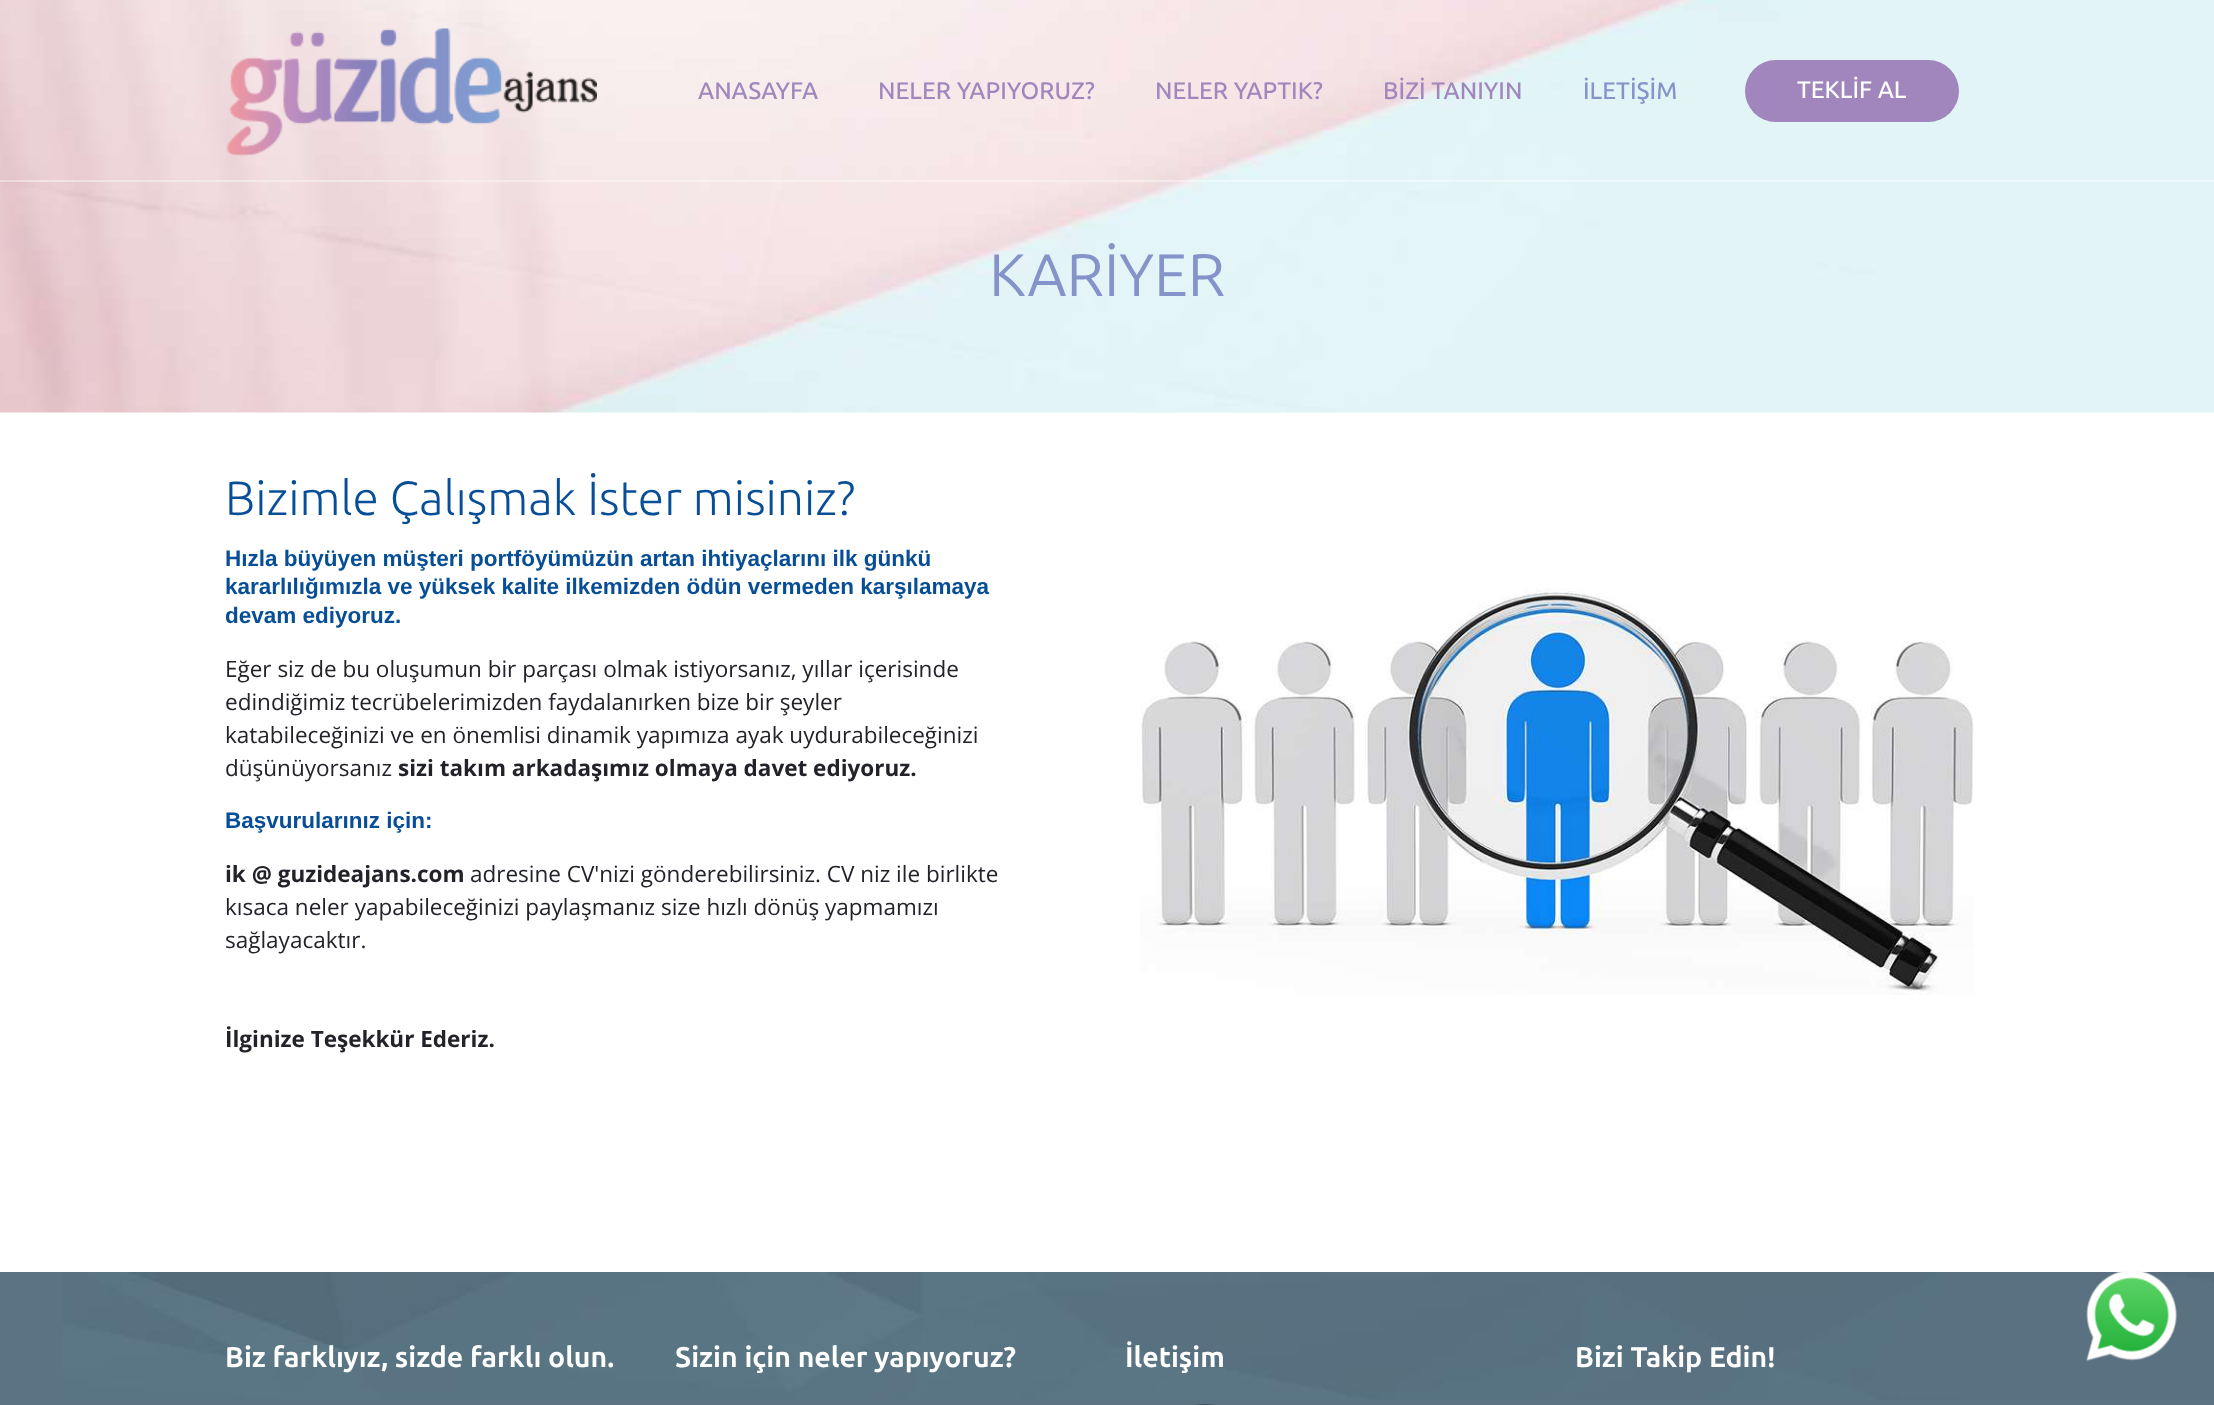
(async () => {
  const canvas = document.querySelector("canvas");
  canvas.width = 2214;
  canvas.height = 1405;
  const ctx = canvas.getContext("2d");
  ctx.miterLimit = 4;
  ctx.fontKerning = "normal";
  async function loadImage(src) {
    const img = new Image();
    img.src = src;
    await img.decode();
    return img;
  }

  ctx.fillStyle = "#ffffff";
  ctx.fillRect(0, 0, 2214, 1405);
  ctx.drawImage(await loadImage("img/1.png"), 0, 0, 2214, 413);
  ctx.fillStyle = "rgba(255, 255, 255, 0.4)";
  ctx.fillRect(0, 180, 2214, 2);
  ctx.drawImage(await loadImage("img/2.png"), 226, 28, 371, 128);
  ctx.fillStyle = "#a186bd";
  ctx.beginPath();
  ctx.roundRect(1745, 60, 214, 62, 31);
  ctx.fill();
  ctx.drawImage(await loadImage("img/3.png"), 1140, 588, 834, 407);
  ctx.fillStyle = "#5a7483";
  ctx.fillRect(0, 1272, 2214, 133);
  ctx.drawImage(await loadImage("img/4.png"), 63, 1272, 2151, 128);
  ctx.drawImage(await loadImage("img/5.png"), 1194, 1404, 22, 1);
  ctx.drawImage(await loadImage("img/6.png"), 2086, 1270, 91, 91);
  ctx.font = "500 24px Ubuntu";
  ctx.fillStyle = "#a186bd";
  for (const [text, x, y] of [
    ["ANASAYFA", 698, 99],
    ["NELER YAPIYORUZ?", 878, 99],
    ["NELER YAPTIK?", 1155, 99],
    ["BİZİ TANIYIN", 1383, 99],
  ]) {
    ctx.fillText(text, x, y);
  }
  ctx.fillStyle = "#8493ca";
  ctx.fillText("İLETİŞİM", 1583, 99);
  ctx.fillStyle = "#ffffff";
  ctx.fillText("TEKLİF AL", 1797, 98);
  ctx.font = "60px Ubuntu";
  ctx.fillStyle = "#8493ca";
  ctx.fillText("KARİYER", 989, 296);
  ctx.font = "300 48px Ubuntu";
  ctx.fillStyle = "#074e97";
  ctx.fillText("Bizimle Çalışmak İster misiniz?", 225, 515);
  ctx.font = "bold 22.5px Liberation Sans";
  for (const [text, x, y] of [
    ["Hızla büyüyen müşteri portföyümüzün artan ihtiyaçlarını ilk günkü", 225, 566],
    ["kararlılığımızla ve yüksek kalite ilkemizden ödün vermeden karşılamaya", 225, 594],
    ["devam ediyoruz.", 225, 623],
  ]) {
    ctx.fillText(text, x, y);
  }
  ctx.font = "22.5px Open Sans";
  ctx.fillStyle = "#23222a";
  for (const [text, x, y] of [
    ["Eğer siz de bu oluşumun bir parçası olmak istiyorsanız, yıllar içerisinde", 225, 677],
    ["edindiğimiz tecrübelerimizden faydalanırken bize bir şeyler", 225, 710],
    ["katabileceğinizi ve en önemlisi dinamik yapımıza ayak uydurabileceğinizi", 225, 743],
    ["düşünüyorsanız", 225, 776],
  ]) {
    ctx.fillText(text, x, y);
  }
  ctx.font = "bold 22.5px Open Sans";
  ctx.fillText("sizi takım arkadaşımız olmaya davet ediyoruz.", 398, 776);
  ctx.font = "bold 22.5px Liberation Sans";
  ctx.fillStyle = "#074e97";
  ctx.fillText("Başvurularınız için:", 225, 828);
  ctx.font = "bold 22.5px Open Sans";
  ctx.fillStyle = "#23222a";
  ctx.fillText("ik @ guzideajans.com", 225, 882);
  ctx.font = "22.5px Open Sans";
  for (const [text, x, y] of [
    ["adresine CV'nizi gönderebilirsiniz. CV niz ile birlikte", 470, 882],
    ["kısaca neler yapabileceğinizi paylaşmanız size hızlı dönüş yapmamızı", 225, 915],
    ["sağlayacaktır.", 225, 948],
  ]) {
    ctx.fillText(text, x, y);
  }
  ctx.font = "bold 22.5px Open Sans";
  ctx.fillText("İlginize Teşekkür Ederiz.", 225, 1047);
  ctx.font = "bold 28.5px Ubuntu";
  ctx.fillStyle = "#ffffff";
  for (const [text, x, y] of [
    ["Biz farklıyız, sizde farklı olun.", 225, 1367],
    ["Sizin için neler yapıyoruz?", 675, 1367],
    ["İletişim", 1125, 1367],
    ["Bizi Takip Edin!", 1575, 1367],
  ]) {
    ctx.fillText(text, x, y);
  }
})();
